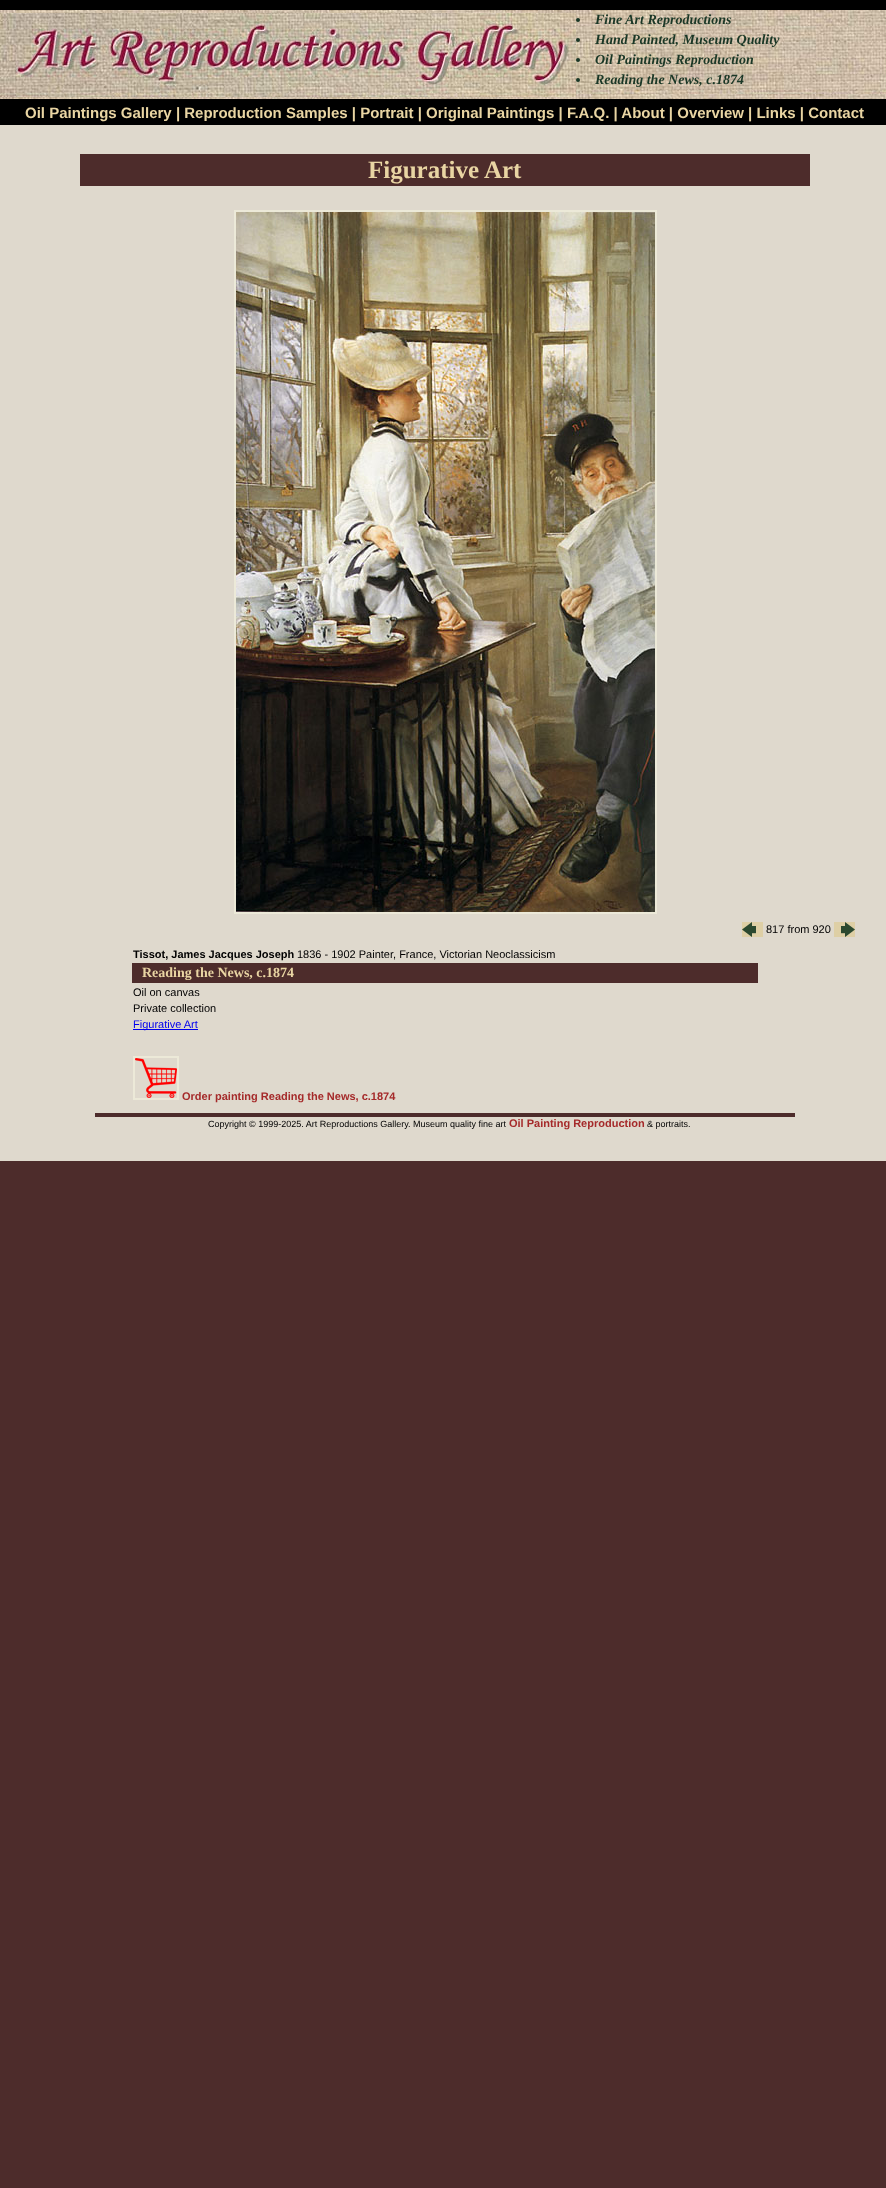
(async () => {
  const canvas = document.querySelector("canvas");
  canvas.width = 886;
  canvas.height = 2188;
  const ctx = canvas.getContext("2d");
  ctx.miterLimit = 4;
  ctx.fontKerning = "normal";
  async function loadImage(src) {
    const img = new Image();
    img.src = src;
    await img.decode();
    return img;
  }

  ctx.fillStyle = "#4d2c2b";
  ctx.fillRect(0, 0, 886, 2188);
  ctx.fillStyle = "#000000";
  ctx.fillRect(0, 0, 886, 125);
  ctx.drawImage(await loadImage("img/1.png"), 0, 10, 576, 89);
  ctx.drawImage(await loadImage("img/2.png"), 0, 13, 576, 84);
  ctx.drawImage(await loadImage("img/3.png"), 576, 10, 310, 89);
  ctx.fillStyle = "#1a3726";
  ctx.beginPath();
  ctx.arc(578, 20, 2, 0, Math.PI * 2);
  ctx.fill();
  ctx.beginPath();
  ctx.arc(578, 40, 2, 0, Math.PI * 2);
  ctx.fill();
  ctx.beginPath();
  ctx.arc(578, 60, 2, 0, Math.PI * 2);
  ctx.fill();
  ctx.beginPath();
  ctx.arc(578, 80, 2, 0, Math.PI * 2);
  ctx.fill();
  ctx.fillStyle = "#dfd9cd";
  ctx.fillRect(0, 125, 886, 1036);
  ctx.fillStyle = "#4d2c2b";
  ctx.fillRect(80, 154, 730, 32);
  ctx.strokeStyle = "#ece9d8";
  ctx.lineWidth = 2;
  ctx.strokeRect(235, 211, 421, 702);
  ctx.drawImage(await loadImage("img/4.png"), 236, 212, 419, 700);
  ctx.drawImage(await loadImage("img/5.png"), 742, 922, 21, 15);
  ctx.drawImage(await loadImage("img/6.png"), 834, 922, 21, 15);
  ctx.fillRect(132, 963, 626, 20);
  ctx.fillStyle = "#0000ee";
  ctx.fillRect(133, 1029, 65, 1);
  ctx.strokeRect(134, 1057, 44, 42);
  ctx.drawImage(await loadImage("img/7.png"), 135, 1058, 42, 40);
  ctx.fillStyle = "#4d2c2b";
  ctx.fillRect(95, 1113, 700, 4);
  ctx.font = "italic bold 14px Liberation Serif";
  ctx.fillStyle = "#1a3726";
  for (const [text, x, y] of [
    ["Fine Art Reproductions", 595, 24],
    ["Hand Painted, Museum Quality", 595, 44],
    ["Oil Paintings Reproduction", 595, 64],
    ["Reading the News, c.1874", 595, 84],
  ]) {
    ctx.fillText(text, x, y);
  }
  ctx.font = "bold 15px Liberation Sans";
  ctx.fillStyle = "#e9d5a3";
  ctx.fillText("Oil Paintings Gallery | Reproduction Samples | Portrait | Original Paintings | F.A.Q. | About | Overview | Links | Contact", 25, 118);
  ctx.font = "bold 25px Liberation Serif";
  ctx.fillText("Figurative Art", 368, 178);
  ctx.font = "11px Liberation Sans";
  ctx.fillStyle = "#000000";
  ctx.fillText("817 from 920", 766, 933);
  ctx.font = "bold 11px Liberation Sans";
  ctx.fillText("Tissot, James Jacques Joseph", 133, 958);
  ctx.font = "11px Liberation Sans";
  ctx.fillText("1836 - 1902 Painter, France, Victorian Neoclassicism", 297, 958);
  ctx.font = "bold 14px Liberation Serif";
  ctx.fillStyle = "#e9d5a3";
  ctx.fillText("Reading the News, c.1874", 142, 977);
  ctx.font = "11px Liberation Sans";
  ctx.fillStyle = "#000000";
  ctx.fillText("Oil on canvas", 133, 996);
  ctx.fillText("Private collection", 133, 1012);
  ctx.fillStyle = "#0000ee";
  ctx.fillText("Figurative Art", 133, 1028);
  ctx.font = "bold 11px Liberation Sans";
  ctx.fillStyle = "#a52a2a";
  ctx.fillText("Order painting Reading the News, c.1874", 182, 1100);
  ctx.font = "9px Liberation Sans";
  ctx.fillStyle = "#000000";
  ctx.fillText("Copyright © 1999-2025. Art Reproductions Gallery. Museum quality fine art", 208, 1127);
  ctx.font = "bold 11px Liberation Sans";
  ctx.fillStyle = "#a52a2a";
  ctx.fillText("Oil Painting Reproduction", 509, 1127);
  ctx.font = "9px Liberation Sans";
  ctx.fillStyle = "#000000";
  ctx.fillText("& portraits.", 647, 1127);
})();
